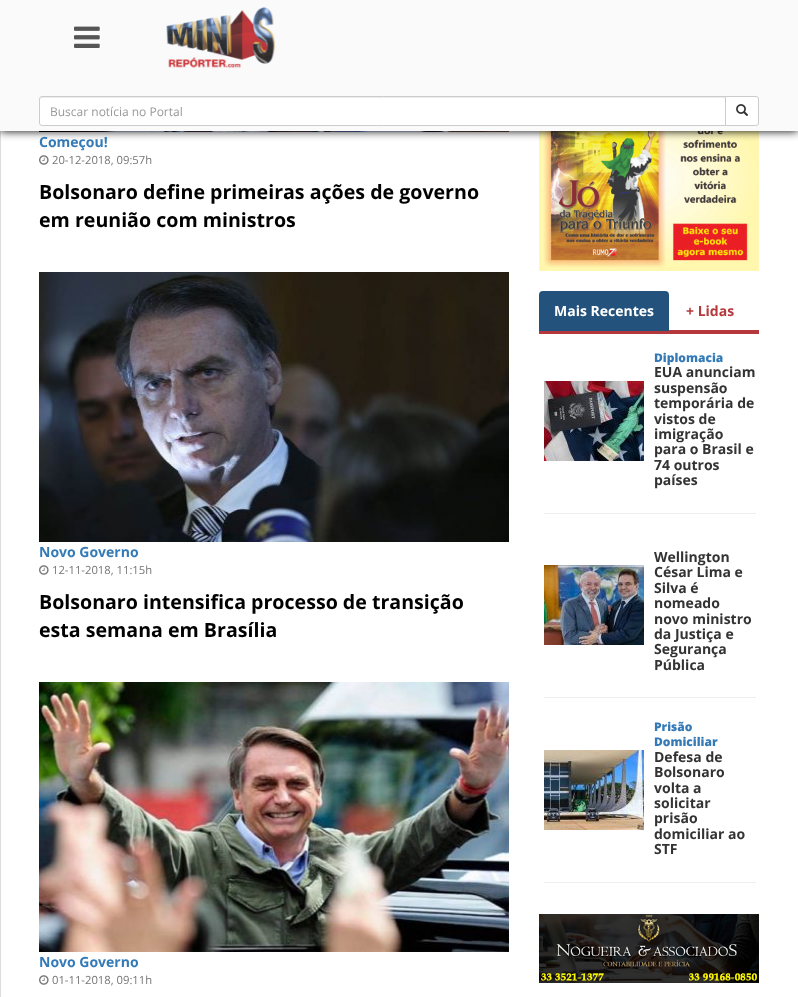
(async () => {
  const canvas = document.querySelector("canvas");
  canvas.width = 798;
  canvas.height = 997;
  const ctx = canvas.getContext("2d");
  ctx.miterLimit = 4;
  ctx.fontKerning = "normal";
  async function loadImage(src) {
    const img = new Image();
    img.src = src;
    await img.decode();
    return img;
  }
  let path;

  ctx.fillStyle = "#ffffff";
  ctx.fillRect(0, 0, 798, 997);
  ctx.fillStyle = "#dddddd";
  ctx.fillRect(0, 131, 1, 866);
  ctx.drawImage(await loadImage("img/4.png"), 39, 131, 470, 1);
  ctx.drawImage(await loadImage("img/8.png"), 539, 131, 220, 140);
  ctx.fillStyle = "#000000";
  ctx.filter = "blur(5px)";
  ctx.beginPath();
  ctx.rect(0, 0, 798, 131);
  ctx.fill();
  ctx.filter = "none";
  ctx.fillStyle = "#fafafa";
  ctx.fillRect(0, 0, 798, 131);
  ctx.drawImage(await loadImage("img/1.png"), 74, 26, 26, 22);
  ctx.drawImage(await loadImage("img/2.png"), 166, 7, 110, 61);
  ctx.fillStyle = "#ffffff";
  ctx.beginPath();
  ctx.roundRect(39, 96, 687, 30, [3, 0, 0, 3]);
  ctx.fill();
  ctx.fillStyle = "#ececec";
  path = new Path2D("M42 98H725V97H42C40 97 40 99 40 100C40 99 41 98 42 98Z");
  ctx.fill(path);
  ctx.beginPath();
  ctx.roundRect(39.5, 96.5, 686, 29, [2.5, 0, 0, 2.5]);
  ctx.strokeStyle = "#cccccc";
  ctx.stroke();
  ctx.fillStyle = "#ffffff";
  ctx.beginPath();
  ctx.roundRect(725.5, 96.5, 33, 29, [0, 2.5, 2.5, 0]);
  ctx.fill();
  ctx.stroke();
  ctx.drawImage(await loadImage("img/3.png"), 736, 104, 12, 12);
  ctx.drawImage(await loadImage("img/5.png"), 39, 155, 10, 10);
  ctx.drawImage(await loadImage("img/6.png"), 39, 272, 470, 270);
  ctx.drawImage(await loadImage("img/5.png"), 39, 565, 10, 10);
  ctx.drawImage(await loadImage("img/7.png"), 39, 682, 470, 270);
  ctx.drawImage(await loadImage("img/5.png"), 39, 975, 10, 10);
  ctx.fillStyle = "#b5383d";
  ctx.fillRect(539, 330, 220, 4);
  ctx.fillStyle = "#23527c";
  ctx.beginPath();
  ctx.roundRect(539, 291, 130, 40, [4, 4, 0, 0]);
  ctx.fill();
  ctx.drawImage(await loadImage("img/9.png"), 544, 381, 100, 80);
  ctx.fillStyle = "#eeeeee";
  ctx.fillRect(544, 513, 212, 1);
  ctx.drawImage(await loadImage("img/10.png"), 544, 565, 100, 80);
  ctx.fillRect(544, 697, 212, 1);
  ctx.drawImage(await loadImage("img/11.png"), 544, 750, 100, 80);
  ctx.fillRect(544, 882, 212, 1);
  ctx.drawImage(await loadImage("img/12.png"), 539, 914, 220, 69);
  ctx.font = "12px Open Sans";
  ctx.fillStyle = "#999999";
  ctx.fillText("Buscar notícia no Portal", 50, 116);
  ctx.font = "bold 14px Open Sans";
  ctx.fillStyle = "#337ab7";
  ctx.fillText("Começou!", 39, 147);
  ctx.font = "11.25px Open Sans";
  ctx.fillStyle = "#777777";
  ctx.fillText("20-12-2018, 09:57h", 52, 164);
  ctx.font = "bold 19.6px Open Sans";
  ctx.fillStyle = "#000000";
  ctx.fillText("Bolsonaro define primeiras ações de governo", 39, 199);
  ctx.fillText("em reunião com ministros", 39, 227);
  ctx.font = "bold 14px Open Sans";
  ctx.fillStyle = "#337ab7";
  ctx.fillText("Novo Governo", 39, 557);
  ctx.font = "11.25px Open Sans";
  ctx.fillStyle = "#777777";
  ctx.fillText("12-11-2018, 11:15h", 52, 574);
  ctx.font = "bold 19.6px Open Sans";
  ctx.fillStyle = "#000000";
  ctx.fillText("Bolsonaro intensifica processo de transição", 39, 609);
  ctx.fillText("esta semana em Brasília", 39, 637);
  ctx.font = "bold 14px Open Sans";
  ctx.fillStyle = "#337ab7";
  ctx.fillText("Novo Governo", 39, 967);
  ctx.font = "11.25px Open Sans";
  ctx.fillStyle = "#777777";
  ctx.fillText("01-11-2018, 09:11h", 52, 984);
  ctx.font = "bold 14px Open Sans";
  ctx.fillStyle = "#ffffff";
  ctx.fillText("Mais Recentes", 554, 316);
  ctx.fillStyle = "#b5383d";
  ctx.fillText("+ Lidas", 686, 316);
  ctx.font = "800 12px Open Sans";
  ctx.fillStyle = "#337ab7";
  ctx.fillText("Diplomacia", 654, 362);
  ctx.font = "bold 14px Open Sans";
  ctx.fillStyle = "#333333";
  for (const [text, x, y] of [
    ["EUA anunciam", 654, 377],
    ["suspensão", 654, 393],
    ["temporária de", 654, 408],
    ["vistos de", 654, 424],
    ["imigração", 654, 439],
    ["para o Brasil e", 654, 454],
    ["74 outros", 654, 470],
    ["países", 654, 485],
    ["Wellington", 654, 562],
    ["César Lima e", 654, 577],
    ["Silva é", 654, 593],
    ["nomeado", 654, 608],
    ["novo ministro", 654, 624],
    ["da Justiça e", 654, 639],
    ["Segurança", 654, 654],
    ["Pública", 654, 670],
  ]) {
    ctx.fillText(text, x, y);
  }
  ctx.font = "800 12px Open Sans";
  ctx.fillStyle = "#337ab7";
  ctx.fillText("Prisão", 654, 731);
  ctx.fillText("Domiciliar", 654, 746);
  ctx.font = "bold 14px Open Sans";
  ctx.fillStyle = "#333333";
  for (const [text, x, y] of [
    ["Defesa de", 654, 762],
    ["Bolsonaro", 654, 777],
    ["volta a", 654, 793],
    ["solicitar", 654, 808],
    ["prisão", 654, 823],
    ["domiciliar ao", 654, 839],
    ["STF", 654, 854],
  ]) {
    ctx.fillText(text, x, y);
  }
})();
